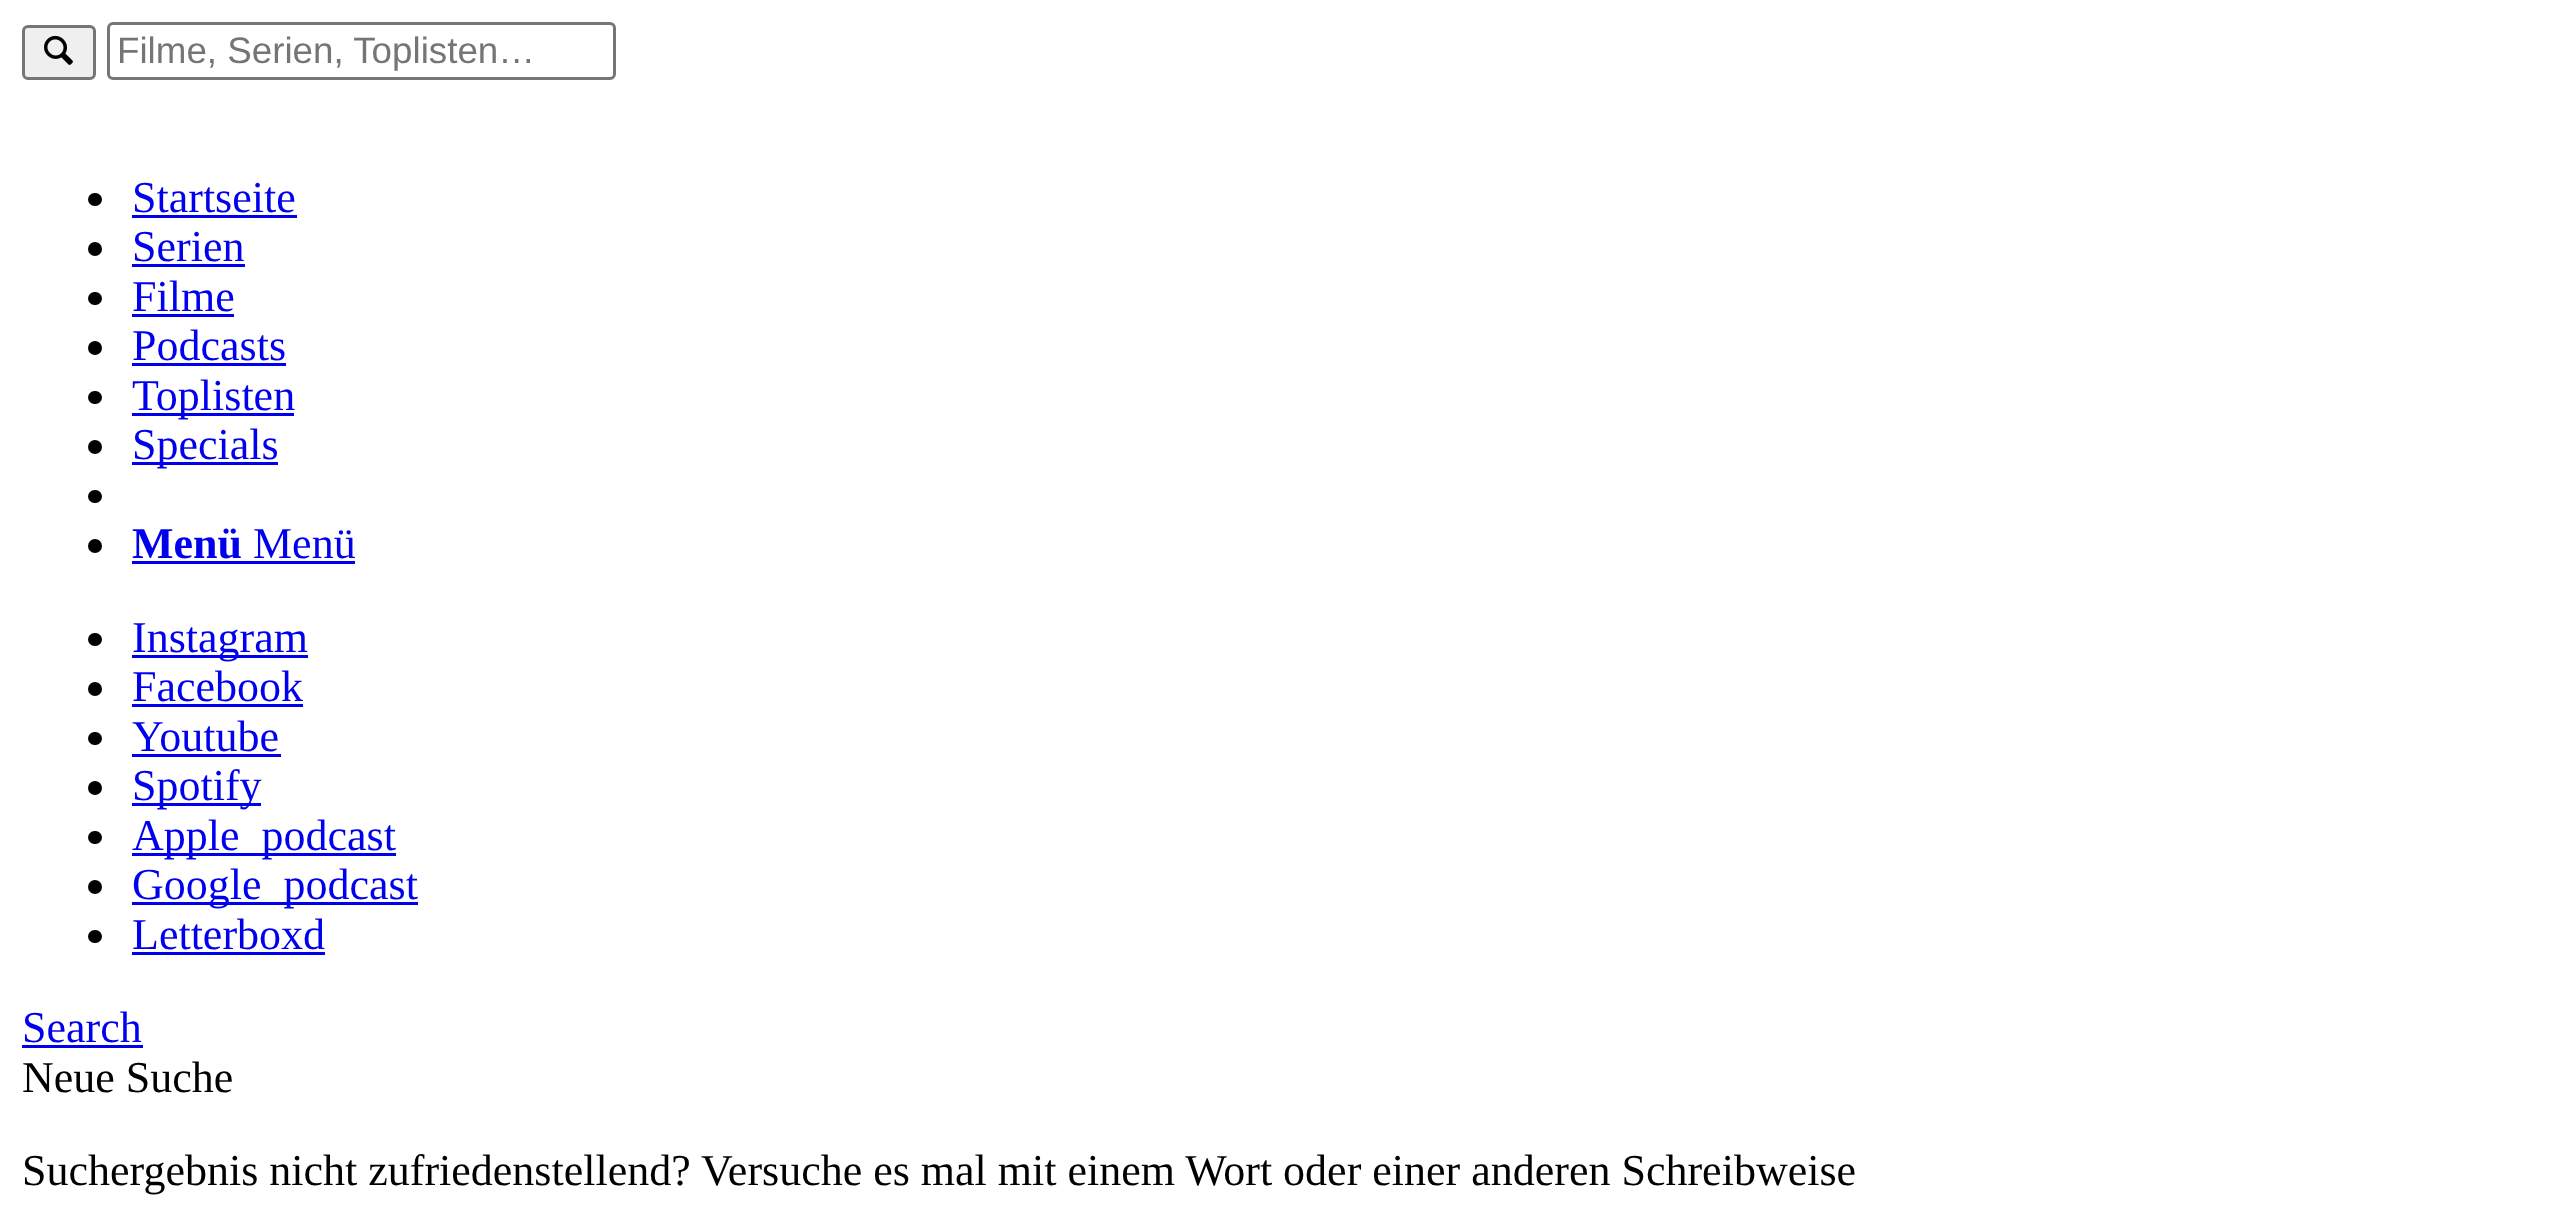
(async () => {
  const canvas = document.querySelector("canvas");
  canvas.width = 2551;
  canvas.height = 1229;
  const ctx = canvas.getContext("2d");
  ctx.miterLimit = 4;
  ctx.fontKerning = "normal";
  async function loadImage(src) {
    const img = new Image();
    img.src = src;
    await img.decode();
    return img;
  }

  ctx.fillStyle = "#ffffff";
  ctx.fillRect(0, 0, 2551, 1229);
  ctx.fillStyle = "#efefef";
  ctx.beginPath();
  ctx.roundRect(23.5, 26.5, 71, 52, 4.5);
  ctx.fill();
  ctx.strokeStyle = "#767676";
  ctx.lineWidth = 3;
  ctx.stroke();
  ctx.drawImage(await loadImage("img/1.png"), 44, 35, 29, 30);
  ctx.beginPath();
  ctx.roundRect(108.5, 23.5, 506, 55, 4.5);
  ctx.stroke();
  ctx.fillStyle = "#000000";
  ctx.beginPath();
  ctx.roundRect(88, 193, 14, 13, 6.5);
  ctx.fill();
  ctx.fillStyle = "#0000ee";
  ctx.fillRect(132, 215, 165, 3);
  ctx.fillStyle = "#000000";
  ctx.beginPath();
  ctx.arc(95, 249, 7, 0, Math.PI * 2);
  ctx.fill();
  ctx.fillStyle = "#0000ee";
  ctx.fillRect(132, 264, 113, 3);
  ctx.fillStyle = "#000000";
  ctx.beginPath();
  ctx.roundRect(88, 292, 14, 13, 6.5);
  ctx.fill();
  ctx.fillStyle = "#0000ee";
  ctx.fillRect(132, 314, 102, 3);
  ctx.fillStyle = "#000000";
  ctx.beginPath();
  ctx.arc(95, 348, 7, 0, Math.PI * 2);
  ctx.fill();
  ctx.fillStyle = "#0000ee";
  ctx.fillRect(132, 363, 154, 3);
  ctx.fillStyle = "#000000";
  ctx.beginPath();
  ctx.roundRect(88, 391, 14, 13, 6.5);
  ctx.fill();
  ctx.fillStyle = "#0000ee";
  ctx.fillRect(132, 413, 162, 3);
  ctx.fillStyle = "#000000";
  ctx.beginPath();
  ctx.arc(95, 447, 7, 0, Math.PI * 2);
  ctx.fill();
  ctx.fillStyle = "#0000ee";
  ctx.fillRect(132, 462, 146, 3);
  ctx.fillStyle = "#000000";
  ctx.beginPath();
  ctx.roundRect(88, 490, 14, 13, 6.5);
  ctx.fill();
  ctx.beginPath();
  ctx.arc(95, 546, 7, 0, Math.PI * 2);
  ctx.fill();
  ctx.fillStyle = "#0000ee";
  ctx.fillRect(132, 561, 223, 3);
  ctx.fillStyle = "#000000";
  ctx.beginPath();
  ctx.roundRect(88, 633, 14, 13, 6.5);
  ctx.fill();
  ctx.fillStyle = "#0000ee";
  ctx.fillRect(132, 655, 176, 3);
  ctx.fillStyle = "#000000";
  ctx.beginPath();
  ctx.arc(95, 689, 7, 0, Math.PI * 2);
  ctx.fill();
  ctx.fillStyle = "#0000ee";
  ctx.fillRect(132, 704, 171, 3);
  ctx.fillStyle = "#000000";
  ctx.beginPath();
  ctx.roundRect(88, 732, 14, 13, 6.5);
  ctx.fill();
  ctx.fillStyle = "#0000ee";
  ctx.fillRect(132, 754, 149, 3);
  ctx.fillStyle = "#000000";
  ctx.beginPath();
  ctx.arc(95, 788, 7, 0, Math.PI * 2);
  ctx.fill();
  ctx.fillStyle = "#0000ee";
  ctx.fillRect(132, 803, 129, 3);
  ctx.fillStyle = "#000000";
  ctx.beginPath();
  ctx.roundRect(88, 831, 14, 13, 6.5);
  ctx.fill();
  ctx.fillStyle = "#0000ee";
  ctx.fillRect(132, 853, 264, 3);
  ctx.fillStyle = "#000000";
  ctx.beginPath();
  ctx.arc(95, 887, 7, 0, Math.PI * 2);
  ctx.fill();
  ctx.fillStyle = "#0000ee";
  ctx.fillRect(132, 902, 286, 3);
  ctx.fillStyle = "#000000";
  ctx.beginPath();
  ctx.roundRect(88, 930, 14, 13, 6.5);
  ctx.fill();
  ctx.fillStyle = "#0000ee";
  ctx.fillRect(132, 952, 193, 3);
  ctx.fillRect(22, 1045, 121, 3);
  ctx.font = "36.75px Liberation Sans";
  ctx.fillStyle = "#757575";
  ctx.fillText("Filme, Serien, Toplisten…", 117, 63);
  ctx.font = "44px Liberation Serif";
  ctx.fillStyle = "#0000ee";
  for (const [text, x, y] of [
    ["Startseite", 132, 212],
    ["Serien", 132, 261],
    ["Filme", 132, 311],
    ["Podcasts", 132, 360],
    ["Toplisten", 132, 410],
    ["Specials", 132, 459],
  ]) {
    ctx.fillText(text, x, y);
  }
  ctx.font = "bold 44px Liberation Serif";
  ctx.fillText("Menü", 132, 558);
  ctx.font = "44px Liberation Serif";
  for (const [text, x, y] of [
    ["Menü", 253, 558],
    ["Instagram", 132, 652],
    ["Facebook", 132, 701],
    ["Youtube", 132, 751],
    ["Spotify", 132, 800],
    ["Apple_podcast", 132, 850],
    ["Google_podcast", 132, 899],
    ["Letterboxd", 132, 949],
    ["Search", 22, 1042],
  ]) {
    ctx.fillText(text, x, y);
  }
  ctx.fillStyle = "#000000";
  ctx.fillText("Neue Suche", 22, 1092);
  ctx.fillText("Suchergebnis nicht zufriedenstellend? Versuche es mal mit einem Wort oder einer anderen Schreibweise", 22, 1185);
})();
